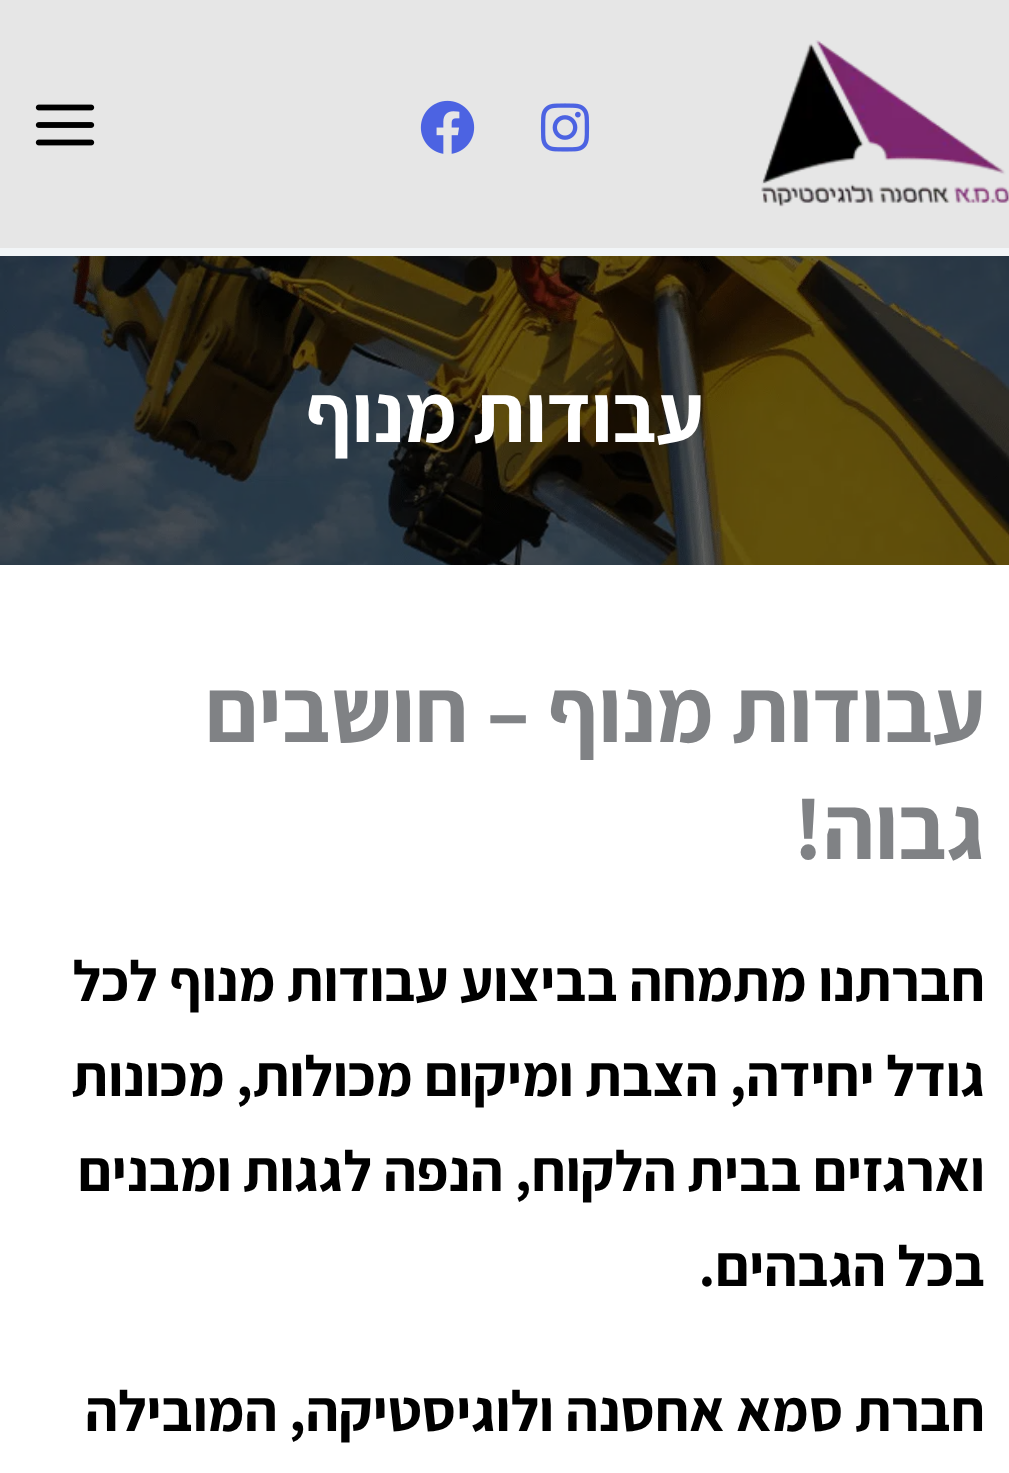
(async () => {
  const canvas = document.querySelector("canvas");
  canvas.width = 1009;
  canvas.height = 1473;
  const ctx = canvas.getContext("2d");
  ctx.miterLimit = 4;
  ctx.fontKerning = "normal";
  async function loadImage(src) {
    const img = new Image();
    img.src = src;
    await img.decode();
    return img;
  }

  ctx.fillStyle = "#ffffff";
  ctx.fillRect(0, 0, 1009, 1473);
  ctx.fillStyle = "#e6e6e6";
  ctx.fillRect(0, 0, 1009, 248);
  ctx.fillStyle = "#f2f5f7";
  ctx.fillRect(0, 248, 1009, 8);
  ctx.drawImage(await loadImage("img/1.png"), 761, 40, 248, 167);
  ctx.drawImage(await loadImage("img/2.png"), 540, 103, 50, 49);
  ctx.drawImage(await loadImage("img/3.png"), 420, 100, 55, 54);
  ctx.drawImage(await loadImage("img/4.png"), 35, 104, 60, 42);
  ctx.drawImage(await loadImage("img/5.png"), 0, 256, 1009, 309);
  ctx.direction = "rtl";
  ctx.font = "200 82px Assistant";
  ctx.fillStyle = "#ffffff";
  ctx.fillText("עבודות מנוף", 704, 442);
  ctx.font = "200 90px Assistant";
  ctx.fillStyle = "#808285";
  ctx.fillText("עבודות מנוף – חושבים", 985, 742);
  ctx.fillText("גבוה!", 985, 859);
  ctx.font = "200 57.5px Assistant";
  ctx.fillStyle = "#000000";
  for (const [text, x, y] of [
    ["חברתנו מתמחה בביצוע עבודות מנוף לכל", 985, 1001],
    ["גודל יחידה, הצבת ומיקום מכולות, מכונות", 985, 1096],
    ["וארגזים בבית הלקוח, הנפה לגגות ומבנים", 985, 1191],
    ["בכל הגבהים.", 985, 1286],
    ["חברת סמא אחסנה ולוגיסטיקה, המובילה", 985, 1431],
  ]) {
    ctx.fillText(text, x, y);
  }
})();
